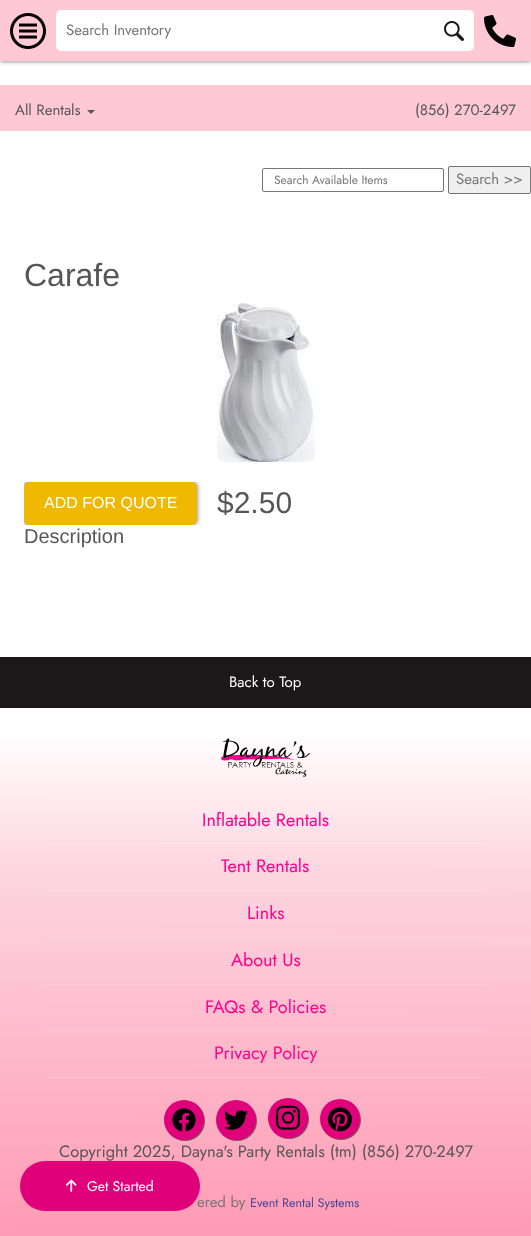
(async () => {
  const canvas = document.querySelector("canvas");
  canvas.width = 531;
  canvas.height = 1236;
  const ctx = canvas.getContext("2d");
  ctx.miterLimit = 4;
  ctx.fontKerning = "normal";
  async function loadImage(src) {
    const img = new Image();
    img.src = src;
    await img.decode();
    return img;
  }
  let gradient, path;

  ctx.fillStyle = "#ffffff";
  ctx.fillRect(0, 0, 531, 1236);
  ctx.fillStyle = "#707070";
  ctx.filter = "blur(2.5px)";
  ctx.beginPath();
  ctx.rect(0, 0, 531, 61);
  ctx.fill();
  ctx.filter = "none";
  ctx.fillStyle = "#ffc8d5";
  ctx.fillRect(0, 0, 531, 61);
  ctx.drawImage(await loadImage("img/1.png"), 10, 13, 36, 36);
  ctx.fillStyle = "#ffffff";
  ctx.beginPath();
  ctx.roundRect(56, 10, 418, 41, 5);
  ctx.fill();
  ctx.drawImage(await loadImage("img/2.png"), 444, 21, 20, 20);
  ctx.drawImage(await loadImage("img/3.png"), 484, 15, 32, 32);
  ctx.fillStyle = "#fec8d5";
  ctx.fillRect(0, 85, 531, 46);
  ctx.fillStyle = "#565656";
  path = new Path2D("M87 110H95L91 114Z");
  ctx.fill(path);
  ctx.beginPath();
  ctx.roundRect(262.5, 168.5, 181, 23, 1.5);
  ctx.strokeStyle = "#767676";
  ctx.stroke();
  ctx.fillStyle = "#efefef";
  ctx.beginPath();
  ctx.roundRect(448.5, 166.5, 82, 27, 1.5);
  ctx.fill();
  ctx.stroke();
  ctx.drawImage(await loadImage("img/4.png"), 217, 303, 98, 159);
  ctx.save();
  ctx.beginPath();
  ctx.rect(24, 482, 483, 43);
  ctx.clip();
  ctx.fillStyle = "#707070";
  ctx.filter = "blur(2.5px)";
  ctx.beginPath();
  ctx.roundRect(24, 482, 173, 43, 5);
  ctx.fill();
  ctx.filter = "none";
  ctx.restore();
  ctx.fillStyle = "#eeb900";
  ctx.beginPath();
  ctx.roundRect(24, 482, 173, 43, 5);
  ctx.fill();
  ctx.fillStyle = "#1a1818";
  ctx.fillRect(0, 657, 531, 51);
  gradient = ctx.createLinearGradient(265, 708, 266, 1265);
  gradient.addColorStop(0.04, "#ffffff");
  gradient.addColorStop(0.29, "#fdd6e0");
  gradient.addColorStop(1, "#ff96b1");
  ctx.fillStyle = gradient;
  ctx.fillRect(0, 738, 531, 498);
  ctx.drawImage(await loadImage("img/5.png"), 221, 738, 89, 39);
  for (const [x, y, w, h, color] of [
    [45, 797, 441, 1, "#feeff3"],
    [45, 1077, 441, 1, "#fec3d2"],
    [45, 843, 441, 1, "#fde5eb"],
    [45, 890, 441, 1, "#fddce4"],
    [45, 937, 441, 1, "#fdd5e0"],
    [45, 984, 441, 1, "#fecfdb"],
    [45, 1030, 441, 1, "#fec9d7"],
  ]) {
    ctx.fillStyle = color;
    ctx.fillRect(x, y, w, h);
  }
  ctx.fillStyle = "rgba(0, 0, 0, 0.5)";
  ctx.filter = "blur(0.5px)";
  ctx.beginPath();
  ctx.roundRect(165, 1101, 40, 40, 20);
  ctx.fill();
  ctx.filter = "none";
  ctx.fillStyle = "#e0007a";
  ctx.beginPath();
  ctx.arc(184, 1120, 20, 0, Math.PI * 2);
  ctx.fill();
  ctx.drawImage(await loadImage("img/6.png"), 172, 1108, 24, 24);
  ctx.fillStyle = "rgba(0, 0, 0, 0.5)";
  ctx.filter = "blur(0.5px)";
  ctx.beginPath();
  ctx.roundRect(217, 1101, 40, 40, 20);
  ctx.fill();
  ctx.filter = "none";
  ctx.fillStyle = "#e0007a";
  ctx.beginPath();
  ctx.arc(236, 1120, 20, 0, Math.PI * 2);
  ctx.fill();
  ctx.drawImage(await loadImage("img/7.png"), 224, 1110, 24, 20);
  ctx.fillStyle = "rgba(0, 0, 0, 0.5)";
  ctx.filter = "blur(0.5px)";
  ctx.beginPath();
  ctx.roundRect(269, 1099, 40, 40, 20);
  ctx.fill();
  ctx.filter = "none";
  ctx.fillStyle = "#e0007a";
  ctx.beginPath();
  ctx.arc(288, 1118, 20, 0, Math.PI * 2);
  ctx.fill();
  ctx.drawImage(await loadImage("img/8.png"), 276, 1105, 24, 25);
  ctx.fillStyle = "rgba(0, 0, 0, 0.5)";
  ctx.filter = "blur(0.5px)";
  ctx.beginPath();
  ctx.roundRect(321, 1100, 40, 40, 20);
  ctx.fill();
  ctx.filter = "none";
  ctx.fillStyle = "#e0007a";
  ctx.beginPath();
  ctx.arc(340, 1119, 20, 0, Math.PI * 2);
  ctx.fill();
  ctx.drawImage(await loadImage("img/9.png"), 328, 1107, 24, 25);
  ctx.font = "15px Jost";
  ctx.fillStyle = "#757575";
  ctx.fillText("Search Inventory", 66, 35);
  ctx.fillStyle = "#565656";
  ctx.fillText("All Rentals", 15, 115);
  ctx.fillText("(856) 270-2497", 415, 115);
  ctx.font = "12px Jost";
  ctx.fillStyle = "#757575";
  ctx.fillText("Search Available Items", 274, 184);
  ctx.font = "15px Jost";
  ctx.fillText("Search >>", 456, 184);
  ctx.font = "32px Liberation Sans";
  ctx.fillStyle = "#565656";
  ctx.fillText("Carafe", 24, 286);
  ctx.font = "16px Liberation Sans";
  ctx.fillStyle = "#ffffff";
  ctx.fillText("ADD FOR QUOTE", 44, 508);
  ctx.font = "30px Liberation Sans";
  ctx.fillStyle = "#565656";
  ctx.fillText("$2.50", 217, 513);
  ctx.font = "20px Liberation Sans";
  ctx.fillText("Description", 24, 543);
  ctx.font = "15px Jost";
  ctx.fillStyle = "#ffffff";
  ctx.fillText("Back to Top", 229, 687);
  ctx.font = "18px Jost";
  ctx.fillStyle = "#ff008c";
  for (const [text, x, y] of [
    ["Inflatable Rentals", 202, 826],
    ["Tent Rentals", 221, 872],
    ["Links", 247, 919],
    ["About Us", 231, 966],
    ["FAQs & Policies", 205, 1013],
    ["Privacy Policy", 214, 1059],
  ]) {
    ctx.fillText(text, x, y);
  }
  ctx.font = "16.5px Jost";
  ctx.fillStyle = "#565656";
  ctx.fillText("Copyright 2025, Dayna's Party Rentals (tm) (856) 270-2497", 59, 1157);
  ctx.font = "15px Jost";
  ctx.fillStyle = "#757575";
  ctx.fillText("ered by", 197, 1207);
  ctx.font = "12.5px Jost";
  ctx.fillStyle = "#444499";
  ctx.fillText("Event Rental Systems", 250, 1207);
  ctx.fillStyle = "#e0007a";
  ctx.beginPath();
  ctx.roundRect(20, 1161, 180, 50, 25);
  ctx.fill();
  ctx.drawImage(await loadImage("img/10.png"), 66, 1179, 11, 13);
  ctx.font = "14px Jost";
  ctx.fillStyle = "#ffffff";
  ctx.fillText("Get Started", 87, 1191);
})();
